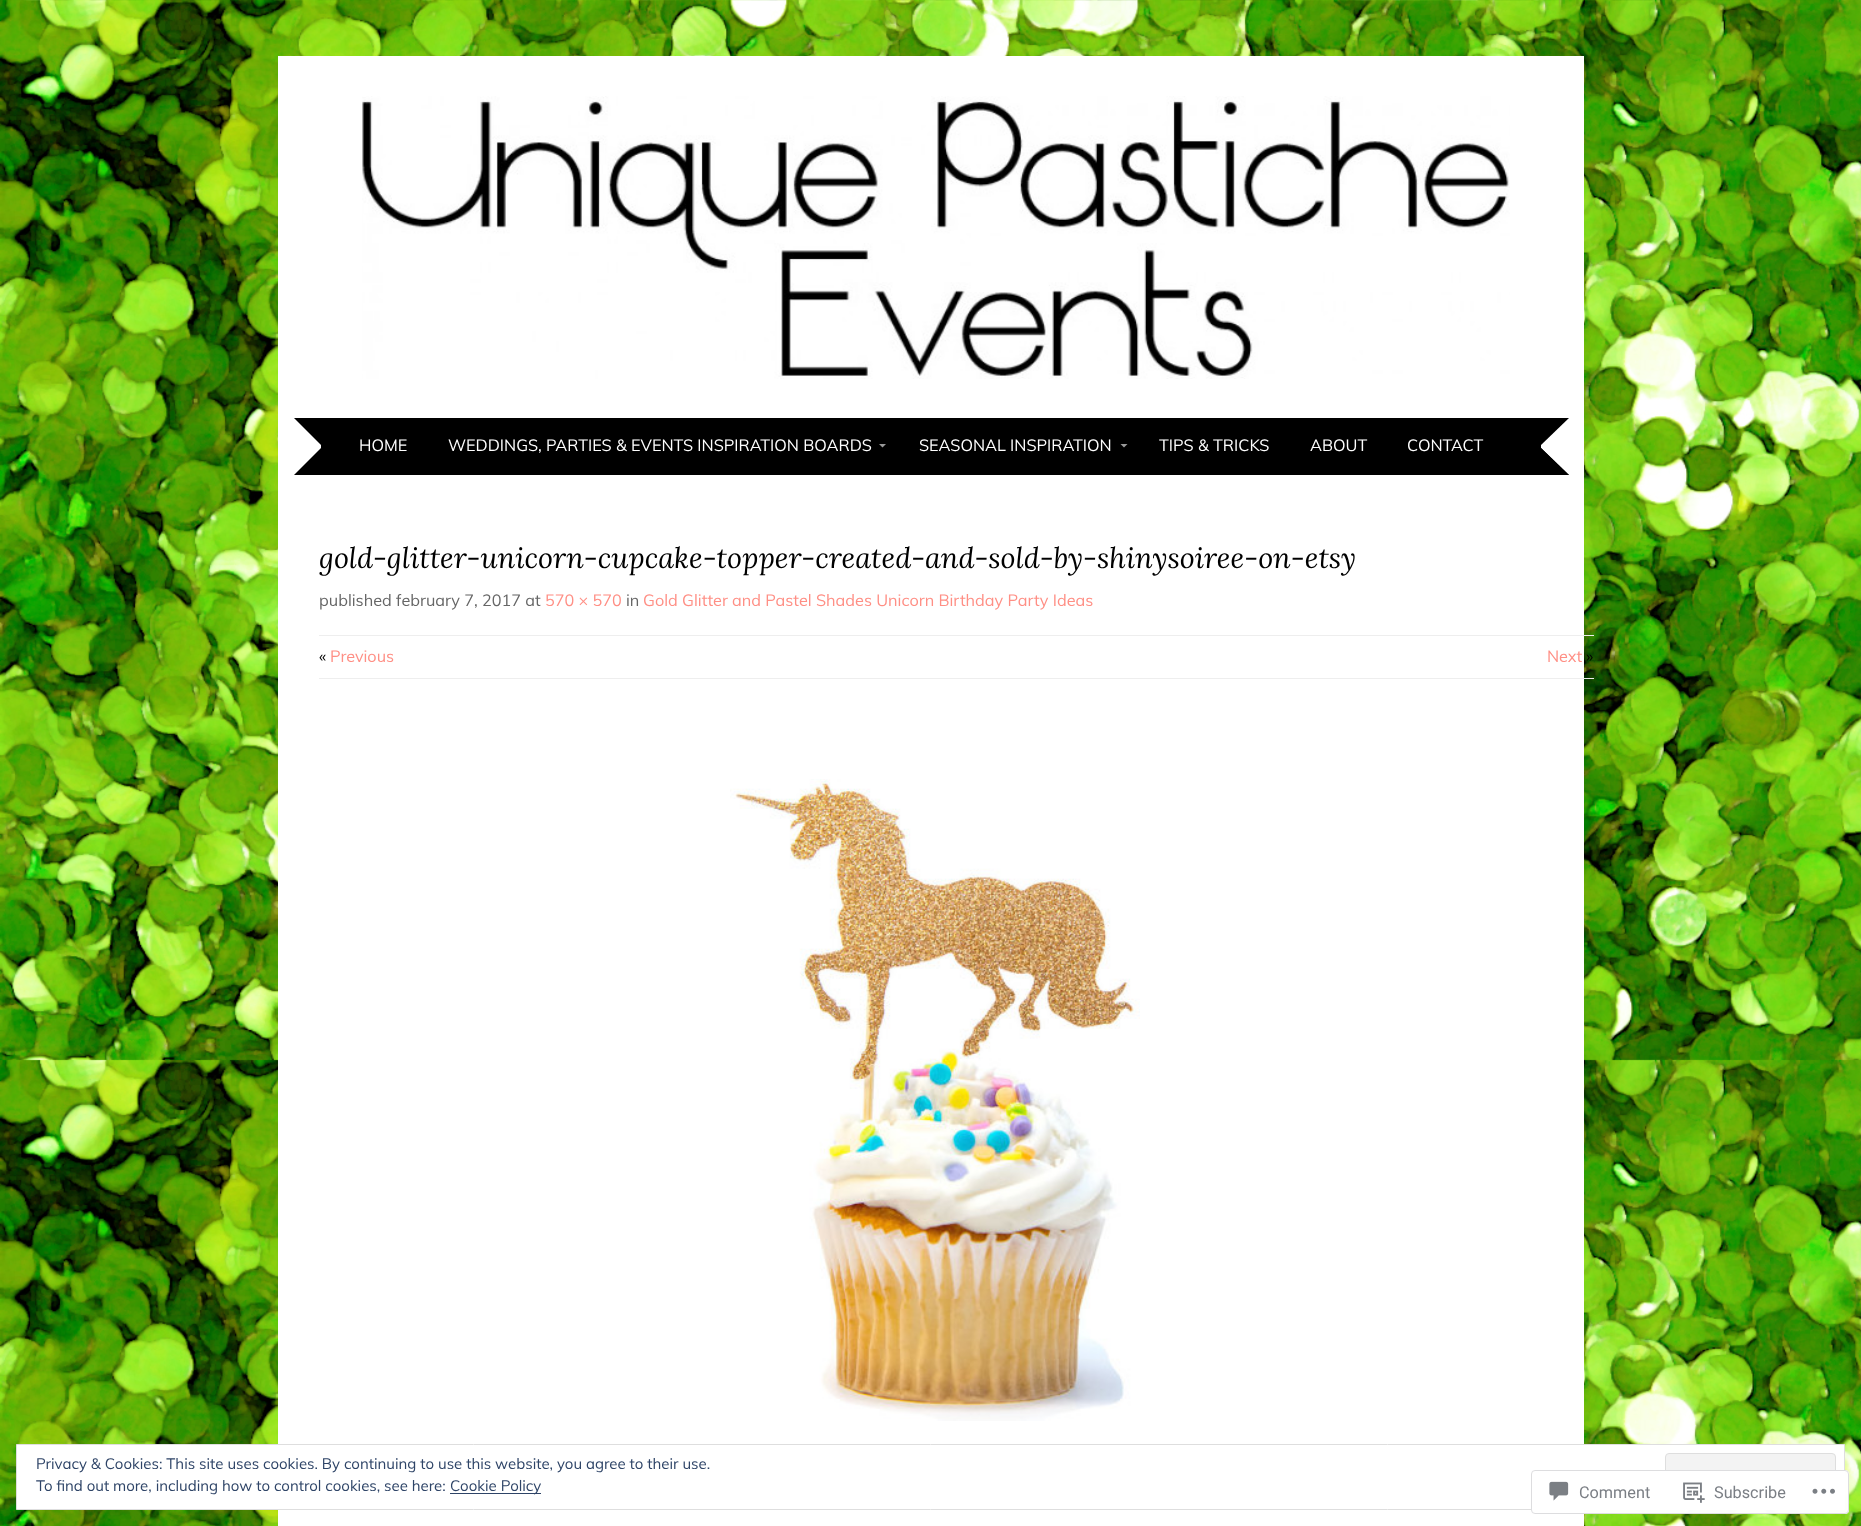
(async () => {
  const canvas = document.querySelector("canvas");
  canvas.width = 1861;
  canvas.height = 1526;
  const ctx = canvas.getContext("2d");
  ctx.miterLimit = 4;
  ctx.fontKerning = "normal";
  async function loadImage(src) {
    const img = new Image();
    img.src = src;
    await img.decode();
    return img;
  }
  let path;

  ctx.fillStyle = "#ffffff";
  ctx.fillRect(0, 0, 1861, 1526);
  ctx.drawImage(await loadImage("img/1.png"), 0, 0, 1861, 1526);
  ctx.fillRect(278, 56, 1306, 1470);
  ctx.drawImage(await loadImage("img/2.png"), 362, 96, 1148, 283);
  ctx.fillStyle = "#000000";
  ctx.fillRect(294, 418, 1275, 57);
  ctx.fillStyle = "#ffffff";
  path = new Path2D("M294 475V418L321 445V448Z");
  ctx.fill(path);
  ctx.fillStyle = "#999999";
  path = new Path2D("M879 444H886L882.5 447.5Z");
  ctx.fill(path);
  path = new Path2D("M1120.5 444H1127.5L1124 447.5Z");
  ctx.fill(path);
  ctx.fillStyle = "#ffffff";
  path = new Path2D("M1569 418V475L1541 448V445Z");
  ctx.fill(path);
  ctx.fillStyle = "#000000";
  path = new Path2D("M1569 475H1511L1541 448Z");
  ctx.fill(path);
  ctx.fillStyle = "#eeeeee";
  ctx.fillRect(319, 635, 1275, 1);
  ctx.fillRect(319, 678, 1275, 1);
  ctx.drawImage(await loadImage("img/3.png"), 730, 779, 410, 642);
  ctx.fillStyle = "#ffffff";
  ctx.beginPath();
  ctx.rect(16.5, 1444.5, 1828, 65);
  ctx.fill();
  ctx.strokeStyle = "#dedede";
  ctx.stroke();
  ctx.fillStyle = "#f3f3f3";
  ctx.beginPath();
  ctx.roundRect(1665.5, 1453.5, 170, 47, 3.5);
  ctx.fill();
  ctx.stroke();
  ctx.fillStyle = "#2e4467";
  ctx.fillRect(450, 1493, 91, 1);
  ctx.fillStyle = "rgba(255, 255, 255, 0.98)";
  ctx.beginPath();
  ctx.roundRect(1531, 1470, 318, 44, 4);
  ctx.fill();
  ctx.beginPath();
  ctx.roundRect(1531.5, 1470.5, 317, 43, 3.5);
  ctx.strokeStyle = "rgba(220, 220, 222, 0.98)";
  ctx.stroke();
  ctx.drawImage(await loadImage("img/4.png"), 1549, 1481, 20, 20);
  ctx.drawImage(await loadImage("img/5.png"), 1683, 1482, 22, 21);
  ctx.drawImage(await loadImage("img/6.png"), 1812, 1488, 23, 6);
  ctx.font = "16.25px Muli";
  ctx.fillStyle = "#ffffff";
  for (const [text, x, y] of [
    ["HOME", 359, 451],
    ["WEDDINGS, PARTIES & EVENTS INSPIRATION BOARDS", 448, 451],
    ["SEASONAL INSPIRATION", 919, 451],
    ["TIPS & TRICKS", 1159, 451],
    ["ABOUT", 1310, 451],
    ["CONTACT", 1407, 451],
  ]) {
    ctx.fillText(text, x, y);
  }
  ctx.font = "italic 28.75px Lora";
  ctx.fillStyle = "#000000";
  ctx.fillText("gold-glitter-unicorn-cupcake-topper-created-and-sold-by-shinysoiree-on-etsy", 319, 568);
  ctx.font = "16.25px Muli";
  ctx.fillStyle = "#666666";
  ctx.fillText("published february 7, 2017 at", 319, 606);
  ctx.fillStyle = "#ff8f85";
  ctx.fillText("570 × 570", 545, 606);
  ctx.fillStyle = "#666666";
  ctx.fillText("in", 626, 606);
  ctx.fillStyle = "#ff8f85";
  ctx.fillText("Gold Glitter and Pastel Shades Unicorn Birthday Party Ideas", 643, 606);
  ctx.fillStyle = "#000000";
  ctx.fillText("«", 319, 662);
  ctx.fillStyle = "#ff8f85";
  ctx.fillText("Previous", 330, 662);
  ctx.fillText("Next", 1547, 662);
  ctx.fillStyle = "#000000";
  ctx.fillText("»", 1586, 662);
  ctx.font = "15px Muli";
  ctx.fillStyle = "#2e4467";
  for (const [text, x, y] of [
    ["Privacy & Cookies: This site uses cookies. By continuing to use this website, you agree to their use.", 36, 1469],
    ["To find out more, including how to control cookies, see here:", 36, 1491],
    ["Cookie Policy", 450, 1491],
  ]) {
    ctx.fillText(text, x, y);
  }
  ctx.font = "16.25px Roboto";
  ctx.fillStyle = "#7b7f85";
  ctx.fillText("Comment", 1579, 1498);
  ctx.fillText("Subscribe", 1714, 1498);
})();
